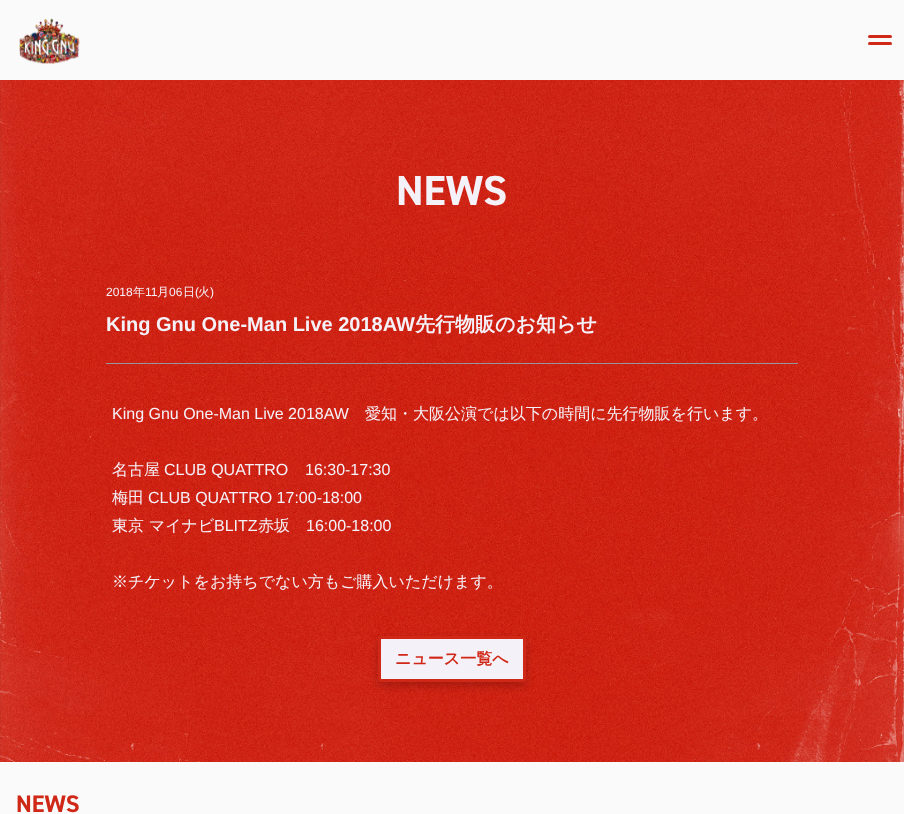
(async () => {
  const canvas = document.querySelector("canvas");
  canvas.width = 904;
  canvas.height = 814;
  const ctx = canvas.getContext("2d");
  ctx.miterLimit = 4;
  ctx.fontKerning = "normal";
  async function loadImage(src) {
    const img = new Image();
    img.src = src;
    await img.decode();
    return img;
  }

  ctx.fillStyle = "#ffffff";
  ctx.fillRect(0, 0, 904, 814);
  ctx.fillStyle = "#fafafa";
  ctx.fillRect(0, 0, 904, 80);
  ctx.drawImage(await loadImage("img/1.png"), 19, 18, 61, 46);
  ctx.fillStyle = "#d02817";
  ctx.beginPath();
  ctx.roundRect(868, 35, 24, 3, 1.5);
  ctx.fill();
  ctx.beginPath();
  ctx.roundRect(868, 42, 24, 3, 1.5);
  ctx.fill();
  ctx.drawImage(await loadImage("img/2.png"), 0, 80, 904, 682);
  ctx.fillStyle = "#95969e";
  ctx.fillRect(106, 363, 692, 1);
  ctx.fillStyle = "rgba(0, 0, 0, 0.2)";
  ctx.filter = "blur(4px)";
  ctx.beginPath();
  ctx.roundRect(378, 640, 148, 46, 2);
  ctx.fill();
  ctx.filter = "none";
  ctx.fillStyle = "#f4f1f8";
  ctx.beginPath();
  ctx.roundRect(379.5, 637.5, 145, 43, 0.5);
  ctx.fill();
  ctx.strokeStyle = "#d02817";
  ctx.lineWidth = 3;
  ctx.stroke();
  ctx.fillStyle = "#fafafa";
  ctx.fillRect(0, 762, 904, 52);
  ctx.font = "bold 42px 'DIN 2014'";
  ctx.fillStyle = "#f4f1f8";
  ctx.fillText("NEWS", 396, 205);
  ctx.font = "12px Liberation Sans";
  ctx.fillText("2018", 106, 296);
  ctx.font = "500 12px WenQuanYi Zen Hei";
  ctx.fillText("年", 133, 296);
  ctx.font = "12px Liberation Sans";
  ctx.fillText("11", 145, 296);
  ctx.font = "500 12px WenQuanYi Zen Hei";
  ctx.fillText("月", 157, 296);
  ctx.font = "12px Liberation Sans";
  ctx.fillText("06", 169, 296);
  ctx.font = "500 12px WenQuanYi Zen Hei";
  ctx.fillText("日", 183, 296);
  ctx.font = "12px Liberation Sans";
  ctx.fillText("(", 195, 296);
  ctx.font = "500 12px WenQuanYi Zen Hei";
  ctx.fillText("火", 198, 296);
  ctx.font = "12px Liberation Sans";
  ctx.fillText(")", 210, 296);
  ctx.font = "bold 20px Liberation Sans";
  ctx.fillText("King Gnu One-Man Live 2018AW", 106, 331);
  ctx.font = "bold 20px WenQuanYi Zen Hei";
  ctx.fillText("先行物販のお知らせ", 415, 331);
  ctx.font = "16px Liberation Sans";
  ctx.fillText("King Gnu One-Man Live 2018AW", 112, 419);
  ctx.font = "500 16px WenQuanYi Zen Hei";
  ctx.fillText("愛知・大阪公演では以下の時間に先行物販を行います。", 365, 419);
  ctx.fillText("名古屋", 112, 475);
  ctx.font = "16px Liberation Sans";
  ctx.fillText("CLUB QUATTRO", 164, 475);
  ctx.fillText("16:30-17:30", 305, 475);
  ctx.font = "500 16px WenQuanYi Zen Hei";
  ctx.fillText("梅⽥", 112, 503);
  ctx.font = "16px Liberation Sans";
  ctx.fillText("CLUB QUATTRO 17:00-18:00", 148, 503);
  ctx.font = "500 16px WenQuanYi Zen Hei";
  ctx.fillText("東京 マイナビ", 112, 531);
  ctx.font = "16px Liberation Sans";
  ctx.fillText("BLITZ", 214, 531);
  ctx.font = "500 16px WenQuanYi Zen Hei";
  ctx.fillText("赤坂", 258, 531);
  ctx.font = "16px Liberation Sans";
  ctx.fillText("16:00-18:00", 306, 531);
  ctx.font = "500 16px WenQuanYi Zen Hei";
  ctx.fillText("※チケットをお持ちでない方もご購入いただけます。", 112, 587);
  ctx.font = "bold 16px WenQuanYi Zen Hei";
  ctx.fillStyle = "#d02817";
  ctx.fillText("ニュース一覧へ", 395, 664);
  ctx.font = "bold 24px 'DIN 2014'";
  ctx.fillText("NEWS", 16, 812);
})();
